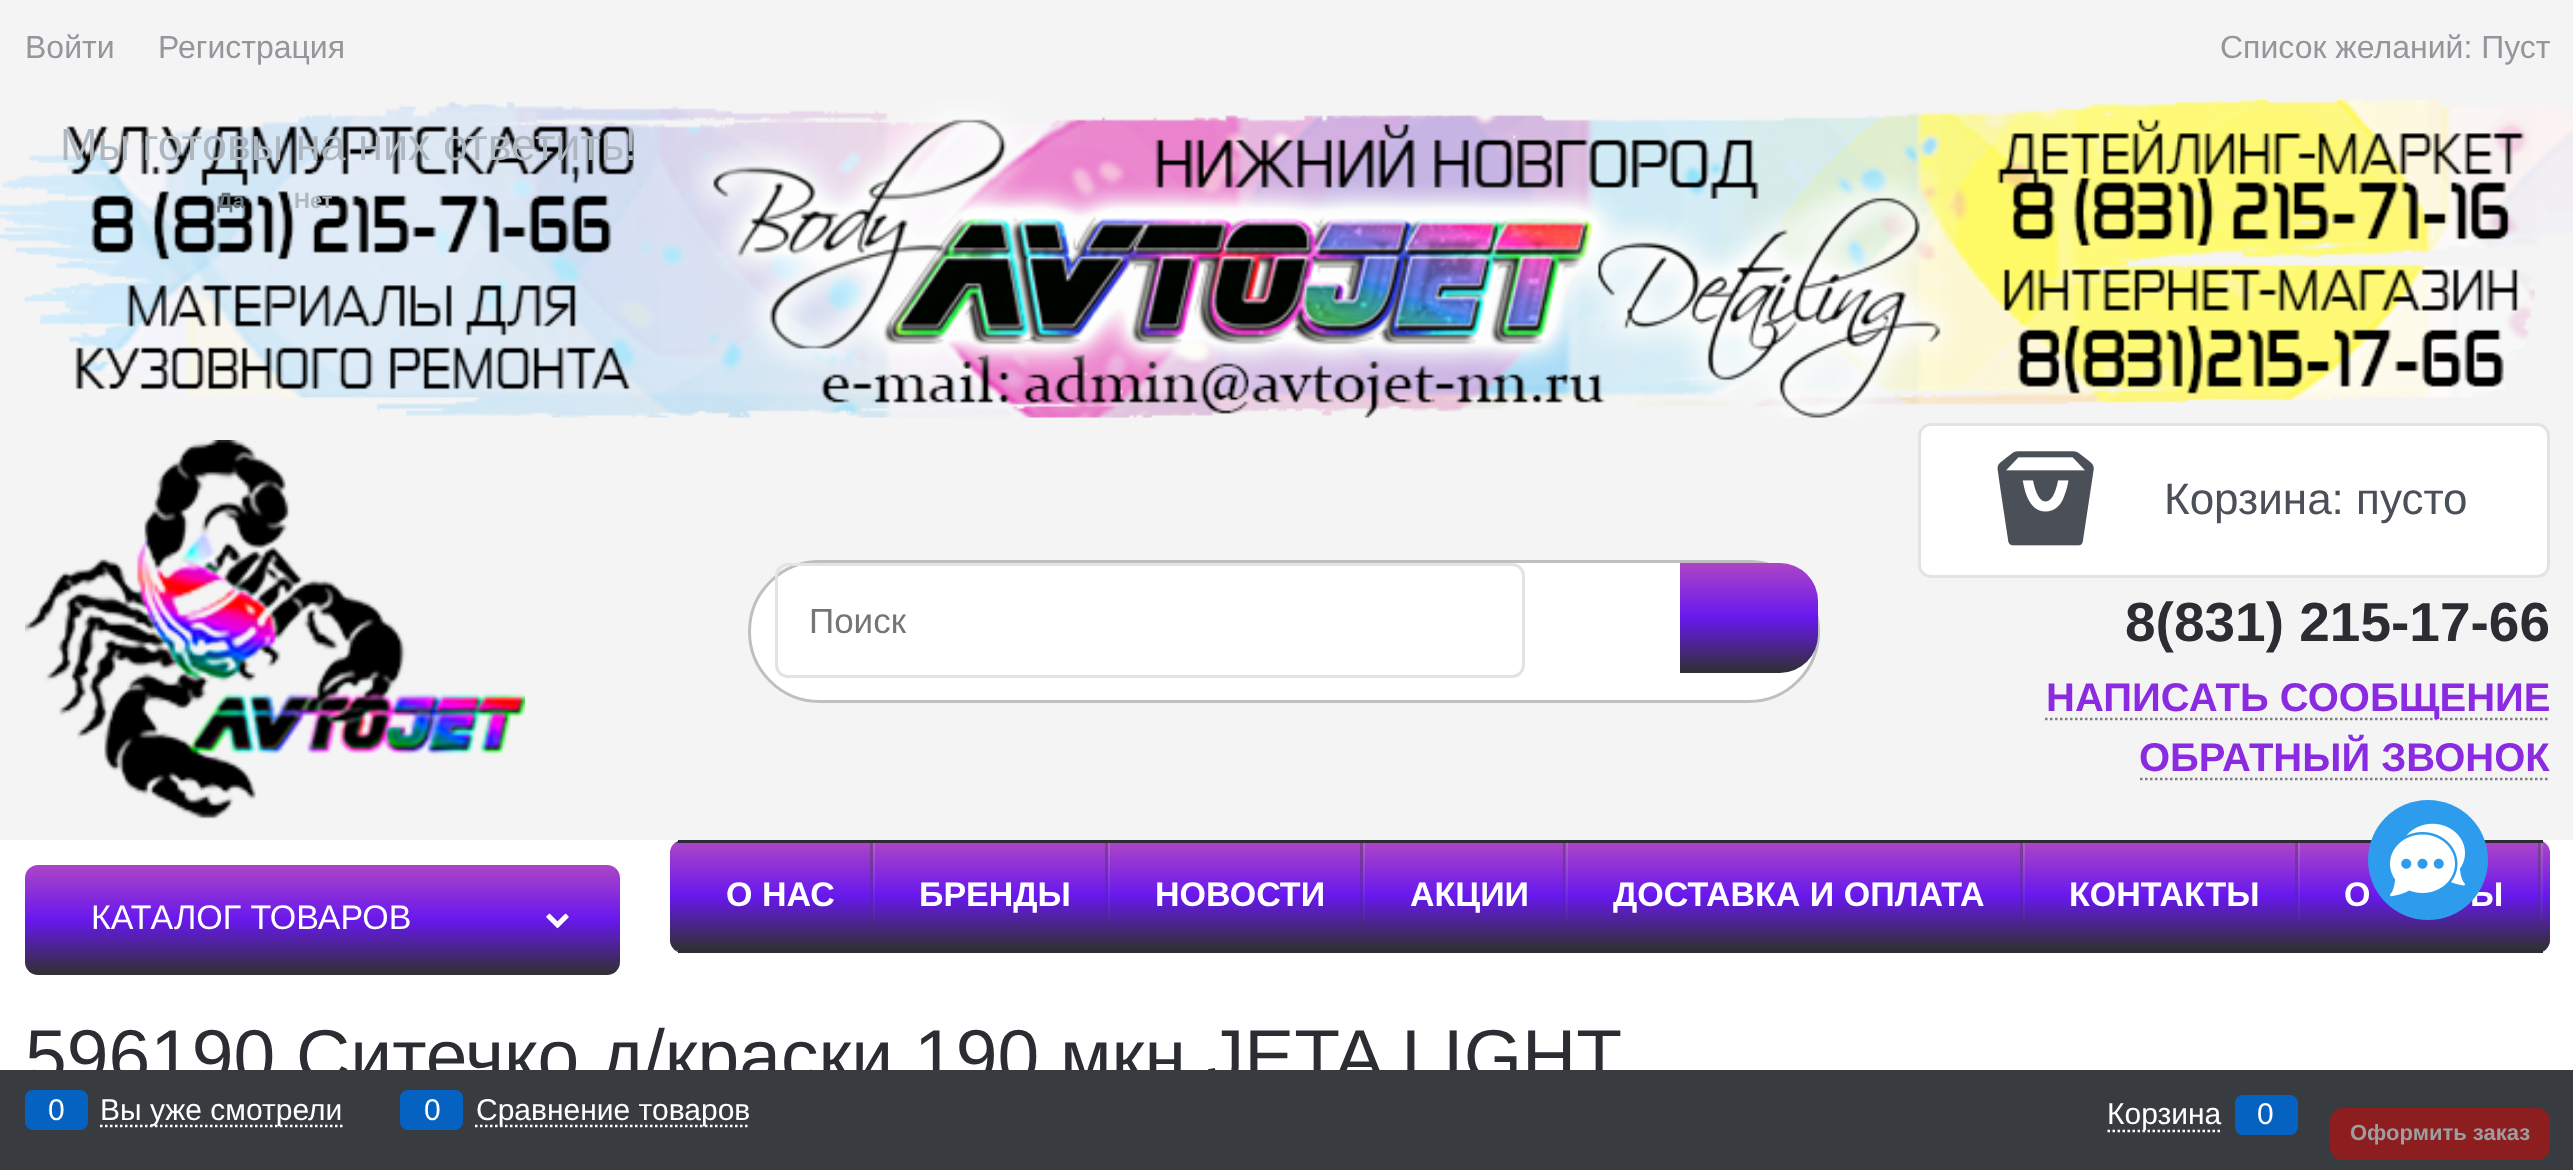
(async () => {
  const canvas = document.querySelector("canvas");
  canvas.width = 2573;
  canvas.height = 1170;
  const ctx = canvas.getContext("2d");
  ctx.miterLimit = 4;
  ctx.fontKerning = "normal";
  async function loadImage(src) {
    const img = new Image();
    img.src = src;
    await img.decode();
    return img;
  }
  let gradient, path;

  ctx.fillStyle = "#ffffff";
  ctx.fillRect(0, 0, 2573, 1170);
  ctx.fillStyle = "#f4f4f4";
  ctx.fillRect(0, 0, 2573, 840);
  ctx.drawImage(await loadImage("img/1.png"), 0, 100, 2573, 318);
  ctx.drawImage(await loadImage("img/2.png"), 25, 440, 500, 379);
  ctx.fillStyle = "#ffffff";
  ctx.beginPath();
  ctx.roundRect(749.5, 561.5, 1069, 140, 70);
  ctx.fill();
  ctx.strokeStyle = "#bfbfbf";
  ctx.lineWidth = 3;
  ctx.stroke();
  ctx.beginPath();
  ctx.roundRect(776.5, 564.5, 747, 112, 11.5);
  ctx.strokeStyle = "#e2e3e4";
  ctx.stroke();
  gradient = ctx.createLinearGradient(1749, 563, 1749, 673);
  gradient.addColorStop(0, "#ad45c7");
  gradient.addColorStop(0.5, "#6718ed");
  gradient.addColorStop(1, "#303030");
  ctx.fillStyle = gradient;
  ctx.beginPath();
  ctx.roundRect(1680, 563, 138, 110, [0, 38, 38, 0]);
  ctx.fill();
  ctx.fillStyle = "#ffffff";
  ctx.beginPath();
  ctx.roundRect(1919.5, 424.5, 629, 152, 11.5);
  ctx.fill();
  ctx.stroke();
  ctx.drawImage(await loadImage("img/3.png"), 1997, 451, 97, 95);
  path = new Path2D("M2045 719H2550");
  ctx.strokeStyle = "#7d7d7d";
  ctx.lineWidth = 2.5;
  ctx.setLineDash([2.5, 2.5]);
  ctx.stroke(path);
  path = new Path2D("M2140 779H2550");
  ctx.stroke(path);
  gradient = ctx.createLinearGradient(1610, 840, 1610, 953);
  gradient.addColorStop(0, "#ad45c7");
  gradient.addColorStop(0.5, "#6718ed");
  gradient.addColorStop(1, "#303030");
  ctx.fillStyle = gradient;
  ctx.beginPath();
  ctx.roundRect(670, 840, 1880, 113, 13);
  ctx.fill();
  ctx.save();
  ctx.beginPath();
  ctx.roundRect(670, 840, 1880, 113, 15);
  ctx.clip();
  gradient = ctx.createLinearGradient(1610, 735, 1610, 843);
  gradient.addColorStop(0, "#ad45c7");
  gradient.addColorStop(0.5, "#6718ed");
  gradient.addColorStop(1, "#303030");
  ctx.fillStyle = gradient;
  ctx.fillRect(670, 841, 1880, 2);
  gradient = ctx.createLinearGradient(1610, 842, 1610, 950);
  gradient.addColorStop(0, "#ad45c7");
  gradient.addColorStop(0.5, "#6718ed");
  gradient.addColorStop(1, "#303030");
  ctx.fillStyle = gradient;
  ctx.fillRect(670, 843, 1880, 107);
  gradient = ctx.createLinearGradient(1610, 950, 1610, 1058);
  gradient.addColorStop(0, "#ad45c7");
  gradient.addColorStop(0.5, "#6718ed");
  gradient.addColorStop(1, "#303030");
  ctx.fillStyle = gradient;
  ctx.fillRect(670, 950, 1880, 2);
  ctx.restore();
  ctx.fillStyle = "#2b2d32";
  ctx.fillRect(678, 840, 1865, 3);
  ctx.fillRect(678, 950, 1865, 3);
  gradient = ctx.createLinearGradient(874, 843, 874, 953);
  gradient.addColorStop(0, "rgba(255, 255, 255, 0.14)");
  gradient.addColorStop(0.72, "rgba(255, 255, 255, 0.02)");
  gradient.addColorStop(1, "rgba(255, 255, 255, 0)");
  ctx.fillStyle = gradient;
  ctx.fillRect(873, 843, 2, 78);
  gradient = ctx.createLinearGradient(871, 843, 871, 953);
  gradient.addColorStop(0, "rgba(57, 57, 57, 0.39)");
  gradient.addColorStop(0.17, "rgba(57, 57, 57, 0.33)");
  gradient.addColorStop(0.61, "rgba(57, 57, 57, 0.12)");
  gradient.addColorStop(0.96, "rgba(57, 57, 57, 0.01)");
  gradient.addColorStop(0.98, "rgba(255, 255, 255, 0.01)");
  gradient.addColorStop(1, "rgba(255, 255, 255, 0)");
  ctx.fillStyle = gradient;
  ctx.fillRect(870, 843, 3, 91);
  gradient = ctx.createLinearGradient(1109, 843, 1109, 953);
  gradient.addColorStop(0, "rgba(255, 255, 255, 0.14)");
  gradient.addColorStop(0.72, "rgba(255, 255, 255, 0.02)");
  gradient.addColorStop(1, "rgba(255, 255, 255, 0)");
  ctx.fillStyle = gradient;
  ctx.fillRect(1108, 843, 2, 78);
  gradient = ctx.createLinearGradient(1106, 843, 1106, 953);
  gradient.addColorStop(0, "rgba(57, 57, 57, 0.39)");
  gradient.addColorStop(0.17, "rgba(57, 57, 57, 0.33)");
  gradient.addColorStop(0.61, "rgba(57, 57, 57, 0.12)");
  gradient.addColorStop(0.96, "rgba(57, 57, 57, 0.01)");
  gradient.addColorStop(0.98, "rgba(255, 255, 255, 0.01)");
  gradient.addColorStop(1, "rgba(255, 255, 255, 0)");
  ctx.fillStyle = gradient;
  ctx.fillRect(1105, 843, 3, 91);
  gradient = ctx.createLinearGradient(1364, 843, 1364, 953);
  gradient.addColorStop(0, "rgba(255, 255, 255, 0.14)");
  gradient.addColorStop(0.72, "rgba(255, 255, 255, 0.02)");
  gradient.addColorStop(1, "rgba(255, 255, 255, 0)");
  ctx.fillStyle = gradient;
  ctx.fillRect(1363, 843, 2, 78);
  gradient = ctx.createLinearGradient(1361, 843, 1361, 953);
  gradient.addColorStop(0, "rgba(57, 57, 57, 0.39)");
  gradient.addColorStop(0.17, "rgba(57, 57, 57, 0.33)");
  gradient.addColorStop(0.61, "rgba(57, 57, 57, 0.12)");
  gradient.addColorStop(0.96, "rgba(57, 57, 57, 0.01)");
  gradient.addColorStop(0.98, "rgba(255, 255, 255, 0.01)");
  gradient.addColorStop(1, "rgba(255, 255, 255, 0)");
  ctx.fillStyle = gradient;
  ctx.fillRect(1360, 843, 3, 91);
  gradient = ctx.createLinearGradient(1566, 843, 1566, 953);
  gradient.addColorStop(0, "rgba(255, 255, 255, 0.14)");
  gradient.addColorStop(0.72, "rgba(255, 255, 255, 0.02)");
  gradient.addColorStop(1, "rgba(255, 255, 255, 0)");
  ctx.fillStyle = gradient;
  ctx.fillRect(1565, 843, 3, 78);
  gradient = ctx.createLinearGradient(1564, 843, 1564, 953);
  gradient.addColorStop(0, "rgba(57, 57, 57, 0.39)");
  gradient.addColorStop(0.17, "rgba(57, 57, 57, 0.33)");
  gradient.addColorStop(0.61, "rgba(57, 57, 57, 0.12)");
  gradient.addColorStop(0.96, "rgba(57, 57, 57, 0.01)");
  gradient.addColorStop(0.98, "rgba(255, 255, 255, 0.01)");
  gradient.addColorStop(1, "rgba(255, 255, 255, 0)");
  ctx.fillStyle = gradient;
  ctx.fillRect(1563, 843, 3, 91);
  gradient = ctx.createLinearGradient(2024, 843, 2024, 953);
  gradient.addColorStop(0, "rgba(255, 255, 255, 0.14)");
  gradient.addColorStop(0.72, "rgba(255, 255, 255, 0.02)");
  gradient.addColorStop(1, "rgba(255, 255, 255, 0)");
  ctx.fillStyle = gradient;
  ctx.fillRect(2023, 843, 2, 78);
  gradient = ctx.createLinearGradient(2021, 843, 2021, 953);
  gradient.addColorStop(0, "rgba(57, 57, 57, 0.39)");
  gradient.addColorStop(0.17, "rgba(57, 57, 57, 0.33)");
  gradient.addColorStop(0.61, "rgba(57, 57, 57, 0.12)");
  gradient.addColorStop(0.96, "rgba(57, 57, 57, 0.01)");
  gradient.addColorStop(0.98, "rgba(255, 255, 255, 0.01)");
  gradient.addColorStop(1, "rgba(255, 255, 255, 0)");
  ctx.fillStyle = gradient;
  ctx.fillRect(2020, 843, 3, 91);
  gradient = ctx.createLinearGradient(2299, 843, 2299, 953);
  gradient.addColorStop(0, "rgba(255, 255, 255, 0.14)");
  gradient.addColorStop(0.72, "rgba(255, 255, 255, 0.02)");
  gradient.addColorStop(1, "rgba(255, 255, 255, 0)");
  ctx.fillStyle = gradient;
  ctx.fillRect(2298, 843, 2, 78);
  gradient = ctx.createLinearGradient(2296, 843, 2296, 953);
  gradient.addColorStop(0, "rgba(57, 57, 57, 0.39)");
  gradient.addColorStop(0.17, "rgba(57, 57, 57, 0.33)");
  gradient.addColorStop(0.61, "rgba(57, 57, 57, 0.12)");
  gradient.addColorStop(0.96, "rgba(57, 57, 57, 0.01)");
  gradient.addColorStop(0.98, "rgba(255, 255, 255, 0.01)");
  gradient.addColorStop(1, "rgba(255, 255, 255, 0)");
  ctx.fillStyle = gradient;
  ctx.fillRect(2295, 843, 3, 91);
  gradient = ctx.createLinearGradient(2541, 843, 2541, 953);
  gradient.addColorStop(0, "rgba(255, 255, 255, 0.14)");
  gradient.addColorStop(0.72, "rgba(255, 255, 255, 0.02)");
  gradient.addColorStop(1, "rgba(255, 255, 255, 0)");
  ctx.fillStyle = gradient;
  ctx.fillRect(2540, 843, 3, 78);
  gradient = ctx.createLinearGradient(2539, 843, 2539, 953);
  gradient.addColorStop(0, "rgba(57, 57, 57, 0.39)");
  gradient.addColorStop(0.17, "rgba(57, 57, 57, 0.33)");
  gradient.addColorStop(0.61, "rgba(57, 57, 57, 0.12)");
  gradient.addColorStop(0.96, "rgba(57, 57, 57, 0.01)");
  gradient.addColorStop(0.98, "rgba(255, 255, 255, 0.01)");
  gradient.addColorStop(1, "rgba(255, 255, 255, 0)");
  ctx.fillStyle = gradient;
  ctx.fillRect(2538, 843, 3, 91);
  gradient = ctx.createLinearGradient(323, 865, 323, 975);
  gradient.addColorStop(0, "#ad45c7");
  gradient.addColorStop(0.5, "#6718ed");
  gradient.addColorStop(1, "#303030");
  ctx.fillStyle = gradient;
  ctx.beginPath();
  ctx.roundRect(25, 865, 595, 110, 13);
  ctx.fill();
  ctx.drawImage(await loadImage("img/4.png"), 546, 913, 23, 16);
  ctx.font = "32px Liberation Sans";
  ctx.fillStyle = "#94969b";
  for (const [text, x, y] of [
    ["Войти", 25, 58],
    ["Регистрация", 158, 58],
    ["Список желаний: Пуст", 2220, 58],
  ]) {
    ctx.fillText(text, x, y);
  }
  ctx.font = "35px Liberation Sans";
  ctx.fillStyle = "#757575";
  ctx.fillText("Поиск", 809, 633);
  ctx.font = "44px Liberation Sans";
  ctx.fillStyle = "#4b4f58";
  ctx.fillText("Корзина: пусто", 2164, 514);
  ctx.font = "bold 55px Liberation Sans";
  ctx.fillStyle = "#2b2d32";
  ctx.fillText("8(831) 215-17-66", 2125, 641);
  ctx.font = "bold 40px Liberation Sans";
  ctx.fillStyle = "#8a2be2";
  ctx.fillText("НАПИСАТЬ СООБЩЕНИЕ", 2046, 711);
  ctx.fillText("ОБРАТНЫЙ ЗВОНОК", 2139, 771);
  ctx.font = "bold 34px Liberation Sans";
  ctx.fillStyle = "#ffffff";
  for (const [text, x, y] of [
    ["О НАС", 726, 906],
    ["БРЕНДЫ", 919, 906],
    ["НОВОСТИ", 1155, 906],
    ["АКЦИИ", 1410, 906],
    ["ДОСТАВКА И ОПЛАТА", 1613, 906],
    ["КОНТАКТЫ", 2069, 906],
    ["О", 2344, 906],
    ["Ы", 2470, 906],
  ]) {
    ctx.fillText(text, x, y);
  }
  ctx.font = "34px Liberation Sans";
  ctx.fillText("КАТАЛОГ ТОВАРОВ", 91, 929);
  ctx.font = "75px Liberation Sans";
  ctx.fillStyle = "#2b2d32";
  ctx.fillText("596190 Ситечко д/краски 190 мкн JETA LIGHT", 25, 1082);
  ctx.fillStyle = "#383c40";
  ctx.fillRect(0, 1070, 2573, 100);
  path = new Path2D("M100 1126H342.5");
  ctx.strokeStyle = "#ffffff";
  ctx.stroke(path);
  ctx.fillStyle = "#0662c1";
  ctx.beginPath();
  ctx.roundRect(25, 1090, 63, 40, 8);
  ctx.fill();
  ctx.font = "30px Liberation Sans";
  ctx.fillStyle = "#ffffff";
  ctx.fillText("0", 48, 1120);
  ctx.fillText("Вы уже смотрели", 100, 1120);
  path = new Path2D("M475 1126H750");
  ctx.stroke(path);
  ctx.fillStyle = "#0662c1";
  ctx.beginPath();
  ctx.roundRect(400, 1090, 63, 40, 8);
  ctx.fill();
  ctx.fillStyle = "#ffffff";
  ctx.fillText("0", 424, 1120);
  ctx.fillText("Сравнение товаров", 476, 1120);
  path = new Path2D("M2107.5 1131H2222.5");
  ctx.stroke(path);
  ctx.fillText("Корзина", 2107, 1124);
  ctx.fillStyle = "#0662c1";
  ctx.beginPath();
  ctx.roundRect(2235, 1095, 63, 40, 8);
  ctx.fill();
  ctx.fillStyle = "#ffffff";
  ctx.fillText("0", 2257, 1124);
  ctx.fillStyle = "#8d1e20";
  ctx.beginPath();
  ctx.roundRect(2330, 1108, 220, 52, 13);
  ctx.fill();
  ctx.font = "bold 22px Liberation Sans";
  ctx.fillStyle = "#9c9ea0";
  ctx.fillText("Оформить заказ", 2350, 1140);
  ctx.font = "45px Liberation Sans";
  ctx.fillStyle = "#aeb7bf";
  ctx.fillText("Мы готовы на них ответить!", 60, 160);
  ctx.font = "bold 22px Liberation Sans";
  ctx.fillStyle = "#69747c";
  ctx.fillText("Да", 217, 208);
  ctx.fillStyle = "#aeb7bf";
  ctx.fillText("Нет", 294, 208);
  ctx.fillStyle = "#2d9ced";
  ctx.beginPath();
  ctx.arc(2428, 860, 60, 0, Math.PI * 2);
  ctx.fill();
  ctx.drawImage(await loadImage("img/5.png"), 2390, 823, 75, 74);
})();
